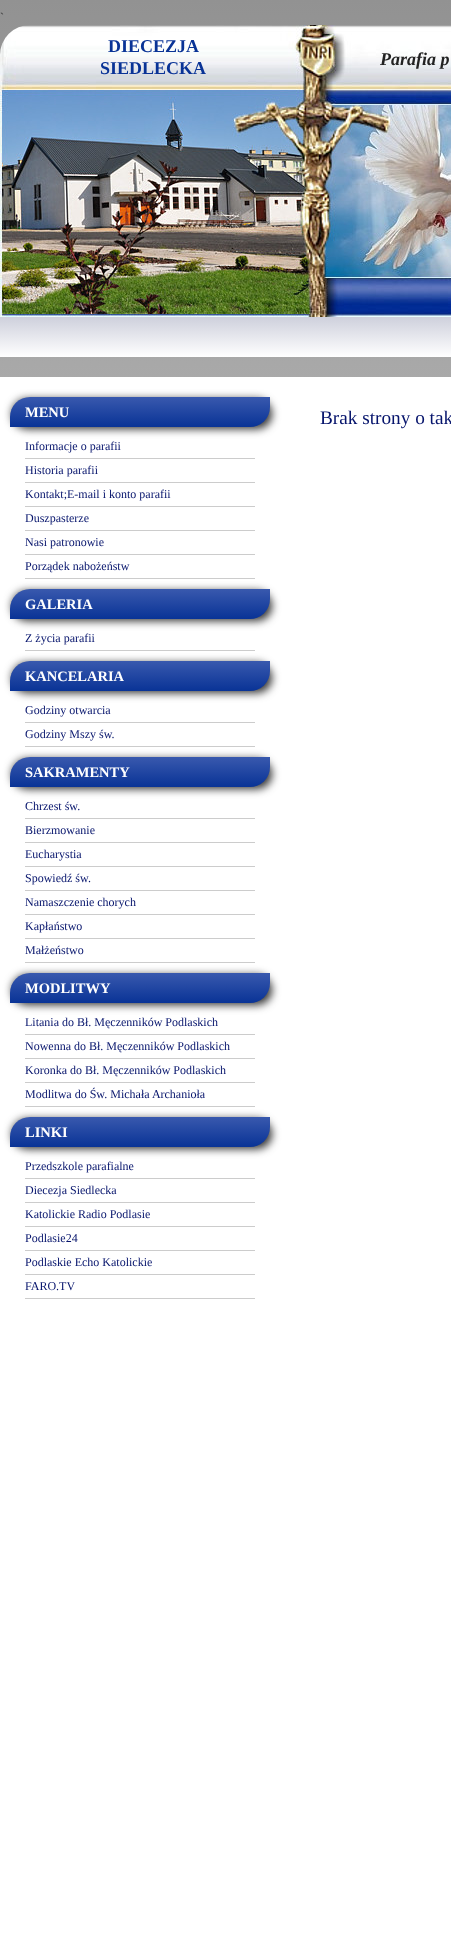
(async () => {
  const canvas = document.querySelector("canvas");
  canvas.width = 451;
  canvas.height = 1948;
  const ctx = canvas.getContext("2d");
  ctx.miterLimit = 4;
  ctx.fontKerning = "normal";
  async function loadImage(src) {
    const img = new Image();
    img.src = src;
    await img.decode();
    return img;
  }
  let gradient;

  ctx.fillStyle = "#ffffff";
  ctx.fillRect(0, 0, 451, 1948);
  gradient = ctx.createLinearGradient(225, 0, 226, 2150);
  gradient.addColorStop(0, "#929292");
  gradient.addColorStop(0.5, "#d3d3d3");
  gradient.addColorStop(1, "#929292");
  ctx.fillStyle = gradient;
  ctx.fillRect(0, 0, 451, 377);
  ctx.drawImage(await loadImage("img/1.png"), 0, 25, 451, 292);
  gradient = ctx.createLinearGradient(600, 317, 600, 357);
  gradient.addColorStop(0, "#ced0dc");
  gradient.addColorStop(1, "#ffffff");
  ctx.fillStyle = gradient;
  ctx.fillRect(0, 317, 451, 40);
  ctx.fillStyle = "#333333";
  ctx.filter = "blur(4px)";
  ctx.beginPath();
  ctx.roundRect(12, 399, 260, 30, 20);
  ctx.fill();
  ctx.filter = "none";
  gradient = ctx.createLinearGradient(140, 397, 140, 427);
  gradient.addColorStop(0, "#3959ae");
  gradient.addColorStop(1, "#093396");
  ctx.fillStyle = gradient;
  ctx.beginPath();
  ctx.roundRect(10, 397, 260, 30, [20, 0, 20, 0]);
  ctx.fill();
  for (const [x, y, w, h, color] of [
    [25, 458, 230, 1, "#cccccc"],
    [25, 482, 230, 1, "#cccccc"],
    [25, 506, 230, 1, "#cccccc"],
    [25, 530, 230, 1, "#cccccc"],
    [25, 554, 230, 1, "#cccccc"],
    [25, 578, 230, 1, "#cccccc"],
  ]) {
    ctx.fillStyle = color;
    ctx.fillRect(x, y, w, h);
  }
  ctx.fillStyle = "#333333";
  ctx.filter = "blur(4px)";
  ctx.beginPath();
  ctx.roundRect(12, 591, 260, 30, 20);
  ctx.fill();
  ctx.filter = "none";
  gradient = ctx.createLinearGradient(140, 589, 140, 619);
  gradient.addColorStop(0, "#3959ae");
  gradient.addColorStop(1, "#093396");
  ctx.fillStyle = gradient;
  ctx.beginPath();
  ctx.roundRect(10, 589, 260, 30, [20, 0, 20, 0]);
  ctx.fill();
  ctx.fillStyle = "#cccccc";
  ctx.fillRect(25, 650, 230, 1);
  ctx.fillStyle = "#333333";
  ctx.filter = "blur(4px)";
  ctx.beginPath();
  ctx.roundRect(12, 663, 260, 30, 20);
  ctx.fill();
  ctx.filter = "none";
  gradient = ctx.createLinearGradient(140, 661, 140, 691);
  gradient.addColorStop(0, "#3959ae");
  gradient.addColorStop(1, "#093396");
  ctx.fillStyle = gradient;
  ctx.beginPath();
  ctx.roundRect(10, 661, 260, 30, [20, 0, 20, 0]);
  ctx.fill();
  ctx.fillStyle = "#cccccc";
  ctx.fillRect(25, 722, 230, 1);
  ctx.fillRect(25, 746, 230, 1);
  ctx.fillStyle = "#333333";
  ctx.filter = "blur(4px)";
  ctx.beginPath();
  ctx.roundRect(12, 759, 260, 30, 20);
  ctx.fill();
  ctx.filter = "none";
  gradient = ctx.createLinearGradient(140, 757, 140, 787);
  gradient.addColorStop(0, "#3959ae");
  gradient.addColorStop(1, "#093396");
  ctx.fillStyle = gradient;
  ctx.beginPath();
  ctx.roundRect(10, 757, 260, 30, [20, 0, 20, 0]);
  ctx.fill();
  for (const [x, y, w, h, color] of [
    [25, 818, 230, 1, "#cccccc"],
    [25, 842, 230, 1, "#cccccc"],
    [25, 866, 230, 1, "#cccccc"],
    [25, 890, 230, 1, "#cccccc"],
    [25, 914, 230, 1, "#cccccc"],
    [25, 938, 230, 1, "#cccccc"],
    [25, 962, 230, 1, "#cccccc"],
  ]) {
    ctx.fillStyle = color;
    ctx.fillRect(x, y, w, h);
  }
  ctx.fillStyle = "#333333";
  ctx.filter = "blur(4px)";
  ctx.beginPath();
  ctx.roundRect(12, 975, 260, 30, 20);
  ctx.fill();
  ctx.filter = "none";
  gradient = ctx.createLinearGradient(140, 973, 140, 1003);
  gradient.addColorStop(0, "#3959ae");
  gradient.addColorStop(1, "#093396");
  ctx.fillStyle = gradient;
  ctx.beginPath();
  ctx.roundRect(10, 973, 260, 30, [20, 0, 20, 0]);
  ctx.fill();
  for (const [x, y, w, h, color] of [
    [25, 1034, 230, 1, "#cccccc"],
    [25, 1058, 230, 1, "#cccccc"],
    [25, 1082, 230, 1, "#cccccc"],
    [25, 1106, 230, 1, "#cccccc"],
  ]) {
    ctx.fillStyle = color;
    ctx.fillRect(x, y, w, h);
  }
  ctx.fillStyle = "#333333";
  ctx.filter = "blur(4px)";
  ctx.beginPath();
  ctx.roundRect(12, 1119, 260, 30, 20);
  ctx.fill();
  ctx.filter = "none";
  gradient = ctx.createLinearGradient(140, 1117, 140, 1147);
  gradient.addColorStop(0, "#3959ae");
  gradient.addColorStop(1, "#093396");
  ctx.fillStyle = gradient;
  ctx.beginPath();
  ctx.roundRect(10, 1117, 260, 30, [20, 0, 20, 0]);
  ctx.fill();
  for (const [x, y, w, h, color] of [
    [25, 1178, 230, 1, "#cccccc"],
    [25, 1202, 230, 1, "#cccccc"],
    [25, 1226, 230, 1, "#cccccc"],
    [25, 1250, 230, 1, "#cccccc"],
    [25, 1274, 230, 1, "#cccccc"],
    [25, 1298, 230, 1, "#cccccc"],
  ]) {
    ctx.fillStyle = color;
    ctx.fillRect(x, y, w, h);
  }
  ctx.font = "12px Liberation Serif";
  ctx.fillStyle = "#333333";
  ctx.fillText("`", 0, 21);
  ctx.font = "bold 18px Liberation Serif";
  ctx.fillStyle = "#093396";
  ctx.fillText("DIECEZJA", 108, 52);
  ctx.fillText("SIEDLECKA", 100, 74);
  ctx.font = "italic bold 18px Liberation Serif";
  ctx.fillStyle = "#222222";
  ctx.fillText("Parafia p", 380, 65);
  ctx.font = "bold 14.5px Liberation Serif";
  ctx.fillStyle = "#ffffff";
  ctx.fillText("MENU", 25, 417);
  ctx.font = "12px Liberation Serif";
  ctx.fillStyle = "#06146c";
  for (const [text, x, y] of [
    ["Informacje o parafii", 25, 450],
    ["Historia parafii", 25, 474],
    ["Kontakt;E-mail i konto parafii", 25, 498],
    ["Duszpasterze", 25, 522],
    ["Nasi patronowie", 25, 546],
    ["Porządek nabożeństw", 25, 570],
  ]) {
    ctx.fillText(text, x, y);
  }
  ctx.font = "bold 14.5px Liberation Serif";
  ctx.fillStyle = "#ffffff";
  ctx.fillText("GALERIA", 25, 609);
  ctx.font = "12px Liberation Serif";
  ctx.fillStyle = "#06146c";
  ctx.fillText("Z życia parafii", 25, 642);
  ctx.font = "bold 14.5px Liberation Serif";
  ctx.fillStyle = "#ffffff";
  ctx.fillText("KANCELARIA", 25, 681);
  ctx.font = "12px Liberation Serif";
  ctx.fillStyle = "#06146c";
  ctx.fillText("Godziny otwarcia", 25, 714);
  ctx.fillText("Godziny Mszy św.", 25, 738);
  ctx.font = "bold 14.5px Liberation Serif";
  ctx.fillStyle = "#ffffff";
  ctx.fillText("SAKRAMENTY", 25, 777);
  ctx.font = "12px Liberation Serif";
  ctx.fillStyle = "#06146c";
  for (const [text, x, y] of [
    ["Chrzest św.", 25, 810],
    ["Bierzmowanie", 25, 834],
    ["Eucharystia", 25, 858],
    ["Spowiedź św.", 25, 882],
    ["Namaszczenie chorych", 25, 906],
    ["Kapłaństwo", 25, 930],
    ["Małżeństwo", 25, 954],
  ]) {
    ctx.fillText(text, x, y);
  }
  ctx.font = "bold 14.5px Liberation Serif";
  ctx.fillStyle = "#ffffff";
  ctx.fillText("MODLITWY", 25, 993);
  ctx.font = "12px Liberation Serif";
  ctx.fillStyle = "#06146c";
  for (const [text, x, y] of [
    ["Litania do Bł. Męczenników Podlaskich", 25, 1026],
    ["Nowenna do Bł. Męczenników Podlaskich", 25, 1050],
    ["Koronka do Bł. Męczenników Podlaskich", 25, 1074],
    ["Modlitwa do Św. Michała Archanioła", 25, 1098],
  ]) {
    ctx.fillText(text, x, y);
  }
  ctx.font = "bold 14.5px Liberation Serif";
  ctx.fillStyle = "#ffffff";
  ctx.fillText("LINKI", 25, 1137);
  ctx.font = "12px Liberation Serif";
  ctx.fillStyle = "#06146c";
  for (const [text, x, y] of [
    ["Przedszkole parafialne", 25, 1170],
    ["Diecezja Siedlecka", 25, 1194],
    ["Katolickie Radio Podlasie", 25, 1218],
    ["Podlasie24", 25, 1242],
    ["Podlaskie Echo Katolickie", 25, 1266],
    ["FARO.TV", 25, 1290],
  ]) {
    ctx.fillText(text, x, y);
  }
  ctx.font = "19.25px Liberation Serif";
  ctx.fillText("Brak strony o tak", 320, 424);
})();
